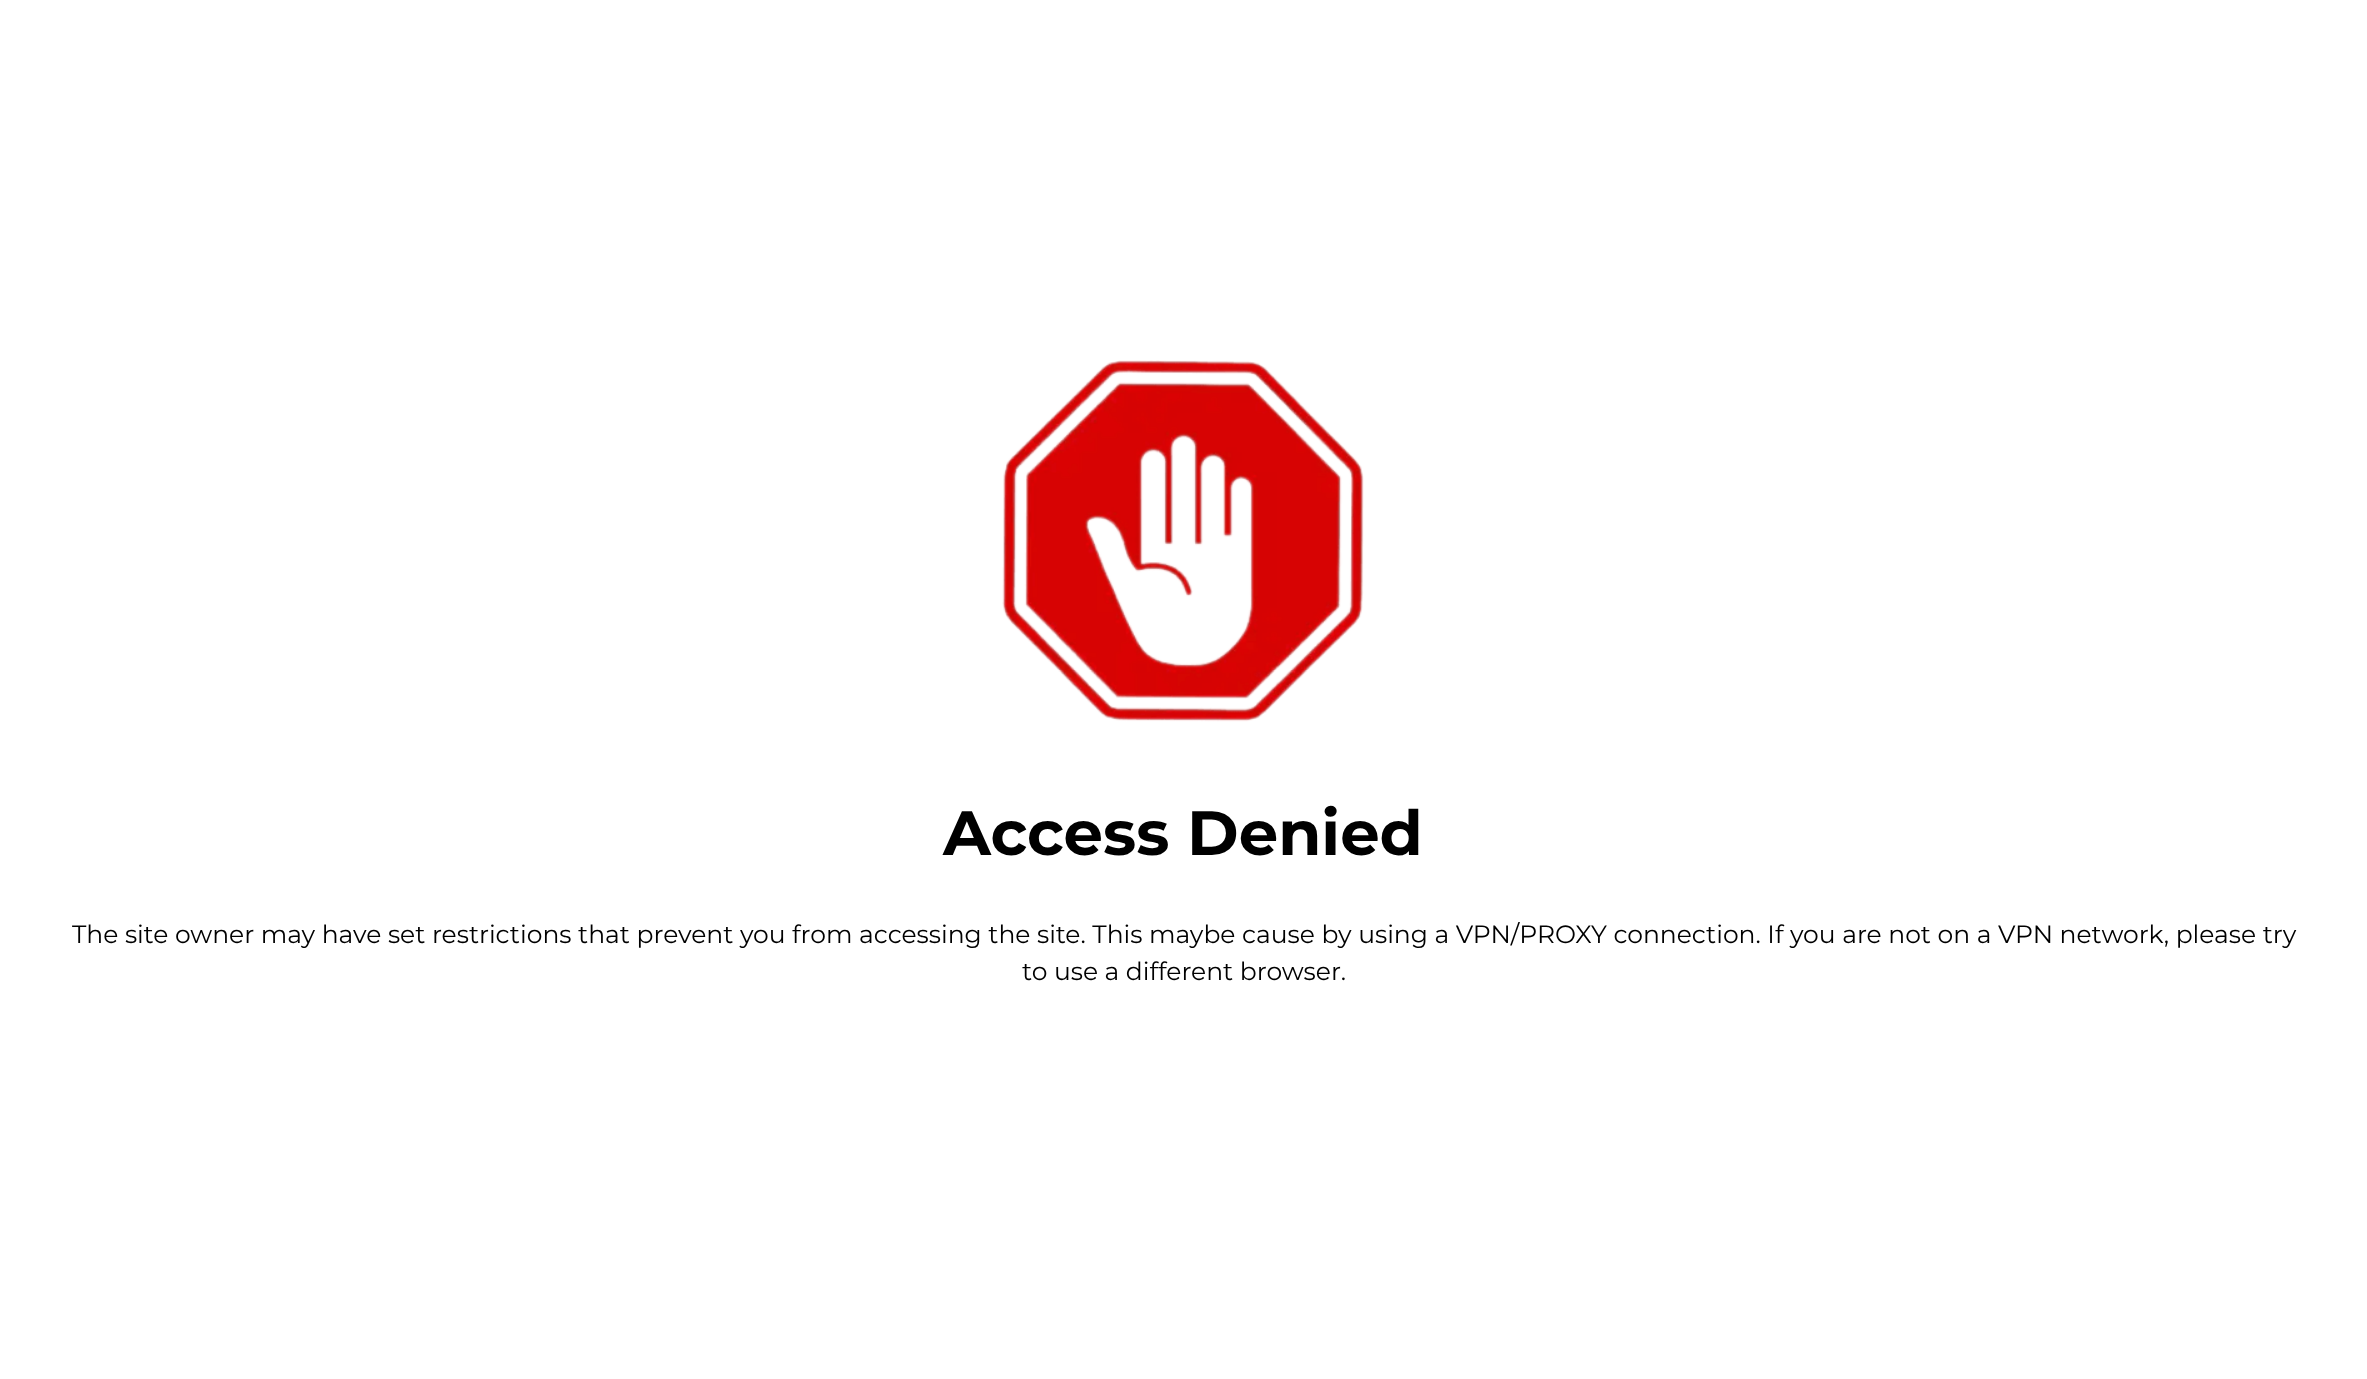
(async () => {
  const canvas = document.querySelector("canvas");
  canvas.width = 2367;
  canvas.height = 1379;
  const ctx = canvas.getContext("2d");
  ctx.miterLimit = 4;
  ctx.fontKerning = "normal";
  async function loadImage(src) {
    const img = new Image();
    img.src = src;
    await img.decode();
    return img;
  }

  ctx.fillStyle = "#ffffff";
  ctx.fillRect(0, 0, 2367, 1379);
  ctx.drawImage(await loadImage("img/1.png"), 1002, 360, 362, 362);
  ctx.font = "bold 62.5px Montserrat";
  ctx.fillStyle = "#000000";
  ctx.fillText("Access Denied", 943, 855);
  ctx.font = "25px Montserrat";
  ctx.fillText("The site owner may have set restrictions that prevent you from accessing the site. This maybe cause by using a VPN/PROXY connection. If you are not on a VPN network, please try", 72, 943);
  ctx.fillText("to use a different browser.", 1022, 980);
})();
